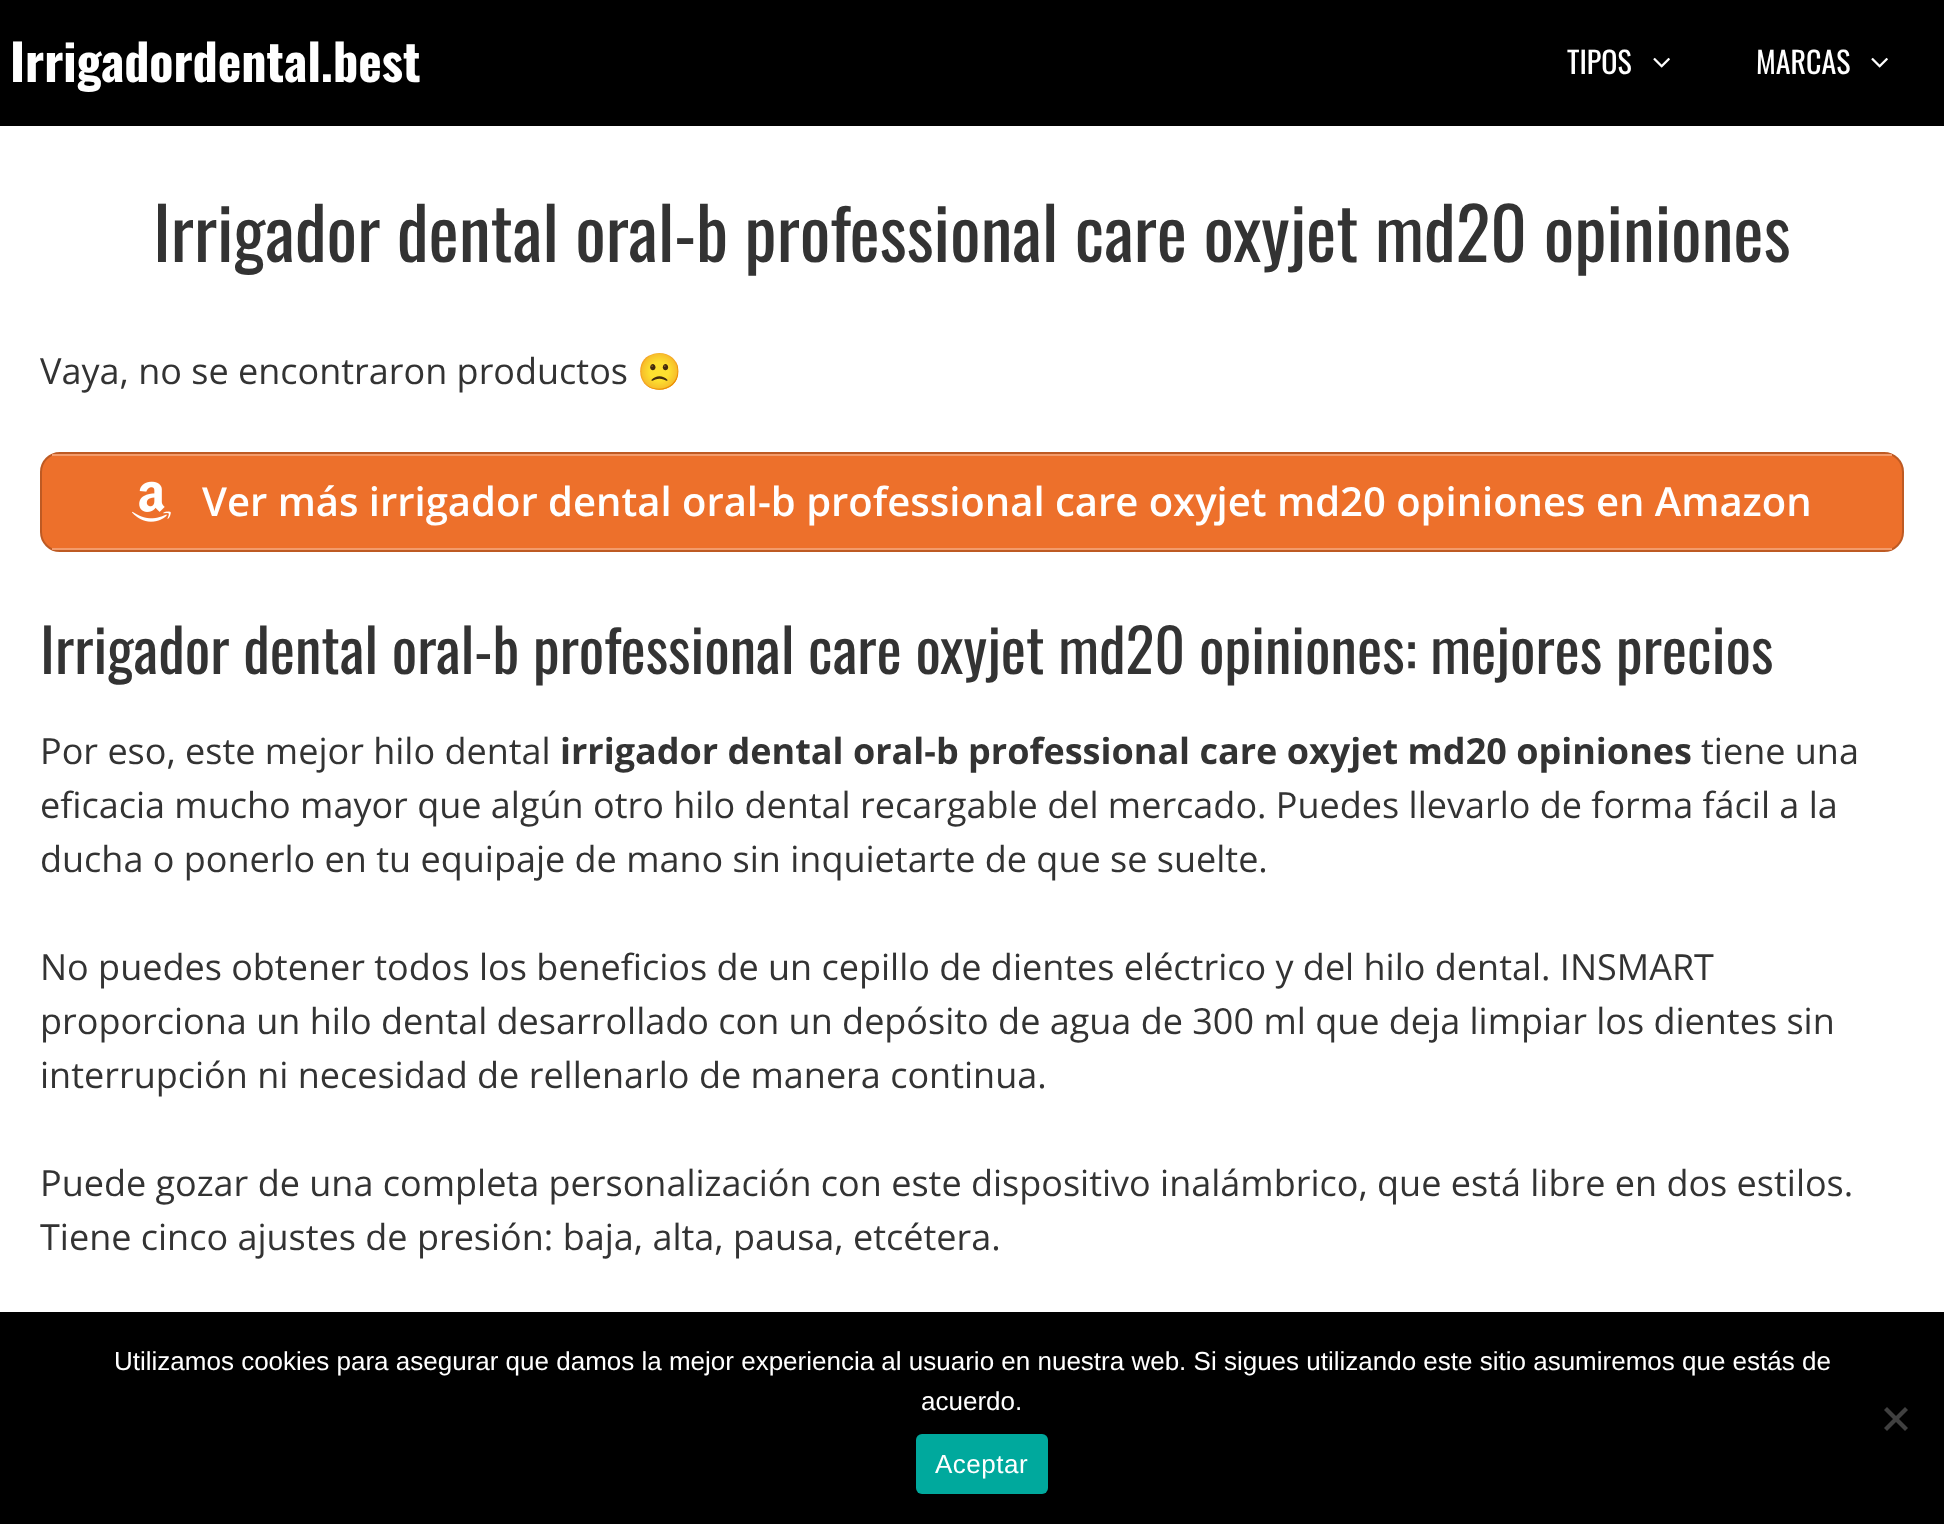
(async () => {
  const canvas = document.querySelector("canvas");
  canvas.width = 1944;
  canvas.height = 1524;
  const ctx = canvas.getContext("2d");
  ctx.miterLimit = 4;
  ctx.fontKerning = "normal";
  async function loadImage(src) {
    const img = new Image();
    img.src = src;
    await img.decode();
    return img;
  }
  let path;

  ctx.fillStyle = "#ffffff";
  ctx.fillRect(0, 0, 1944, 1524);
  ctx.fillStyle = "#000000";
  ctx.fillRect(0, 0, 1944, 126);
  ctx.drawImage(await loadImage("img/1.png"), 1653, 57, 17, 11);
  ctx.drawImage(await loadImage("img/1.png"), 1871, 57, 17, 11);
  ctx.fillStyle = "#ed702b";
  ctx.beginPath();
  ctx.roundRect(41, 453, 1862, 98, 19);
  ctx.fill();
  ctx.strokeStyle = "#be5a23";
  ctx.lineWidth = 2;
  ctx.stroke();
  ctx.fillStyle = "#f39b6b";
  ctx.fillRect(52, 454, 1840, 2);
  ctx.fillRect(52, 548, 1840, 2);
  ctx.drawImage(await loadImage("img/2.png"), 132, 481, 39, 41);
  ctx.fillStyle = "#000000";
  ctx.fillRect(0, 1312, 1944, 212);
  ctx.fillStyle = "#404040";
  path = new Path2D("M1905 1407L1908 1410L1887 1431L1884 1428Z");
  ctx.fill(path);
  path = new Path2D("M1884 1410L1887 1407L1908 1428L1905 1431Z");
  ctx.fill(path);
  ctx.fillStyle = "#00a99d";
  ctx.beginPath();
  ctx.roundRect(916, 1434, 132, 60, 6);
  ctx.fill();
  ctx.font = "bold 50px Oswald";
  ctx.fillStyle = "#ffffff";
  ctx.fillText("Irrigadordental.best", 10, 82);
  ctx.font = "30px Oswald";
  ctx.fillText("TIPOS", 1567, 74);
  ctx.fillText("MARCAS", 1756, 74);
  ctx.font = "72px Oswald";
  ctx.fillStyle = "#333333";
  ctx.fillText("Irrigador dental oral-b professional care oxyjet md20 opiniones", 153, 262);
  ctx.font = "36px Open Sans";
  ctx.fillText("Vaya, no se encontraron productos", 40, 384);
  ctx.font = "36px Noto Color Emoji";
  ctx.fillText("🙁", 637, 384);
  ctx.font = "600 40px Open Sans";
  ctx.fillStyle = "#ffffff";
  ctx.fillText("Ver más irrigador dental oral-b professional care oxyjet md20 opiniones en Amazon", 202, 516);
  ctx.font = "60px Oswald";
  ctx.fillStyle = "#333333";
  ctx.fillText("Irrigador dental oral-b professional care oxyjet md20 opiniones: mejores precios", 40, 674);
  ctx.font = "36px Open Sans";
  ctx.fillText("Por eso, este mejor hilo dental", 40, 764);
  ctx.font = "bold 36px Open Sans";
  ctx.fillText("irrigador dental oral-b professional care oxyjet md20 opiniones", 560, 764);
  ctx.font = "36px Open Sans";
  for (const [text, x, y] of [
    ["tiene una", 1701, 764],
    ["eficacia mucho mayor que algún otro hilo dental recargable del mercado. Puedes llevarlo de forma fácil a la", 40, 818],
    ["ducha o ponerlo en tu equipaje de mano sin inquietarte de que se suelte.", 40, 872],
    ["No puedes obtener todos los beneficios de un cepillo de dientes eléctrico y del hilo dental. INSMART", 40, 980],
    ["proporciona un hilo dental desarrollado con un depósito de agua de 300 ml que deja limpiar los dientes sin", 40, 1034],
    ["interrupción ni necesidad de rellenarlo de manera continua.", 40, 1088],
    ["Puede gozar de una completa personalización con este dispositivo inalámbrico, que está libre en dos estilos.", 40, 1196],
    ["Tiene cinco ajustes de presión: baja, alta, pausa, etcétera.", 40, 1250],
  ]) {
    ctx.fillText(text, x, y);
  }
  ctx.font = "26px Liberation Sans";
  ctx.fillStyle = "#ffffff";
  ctx.fillText("Utilizamos cookies para asegurar que damos la mejor experiencia al usuario en nuestra web. Si sigues utilizando este sitio asumiremos que estás de", 114, 1370);
  ctx.fillText("acuerdo.", 921, 1410);
  ctx.letterSpacing = "0.5px";
  ctx.fillText("Aceptar", 935, 1473);
})();
